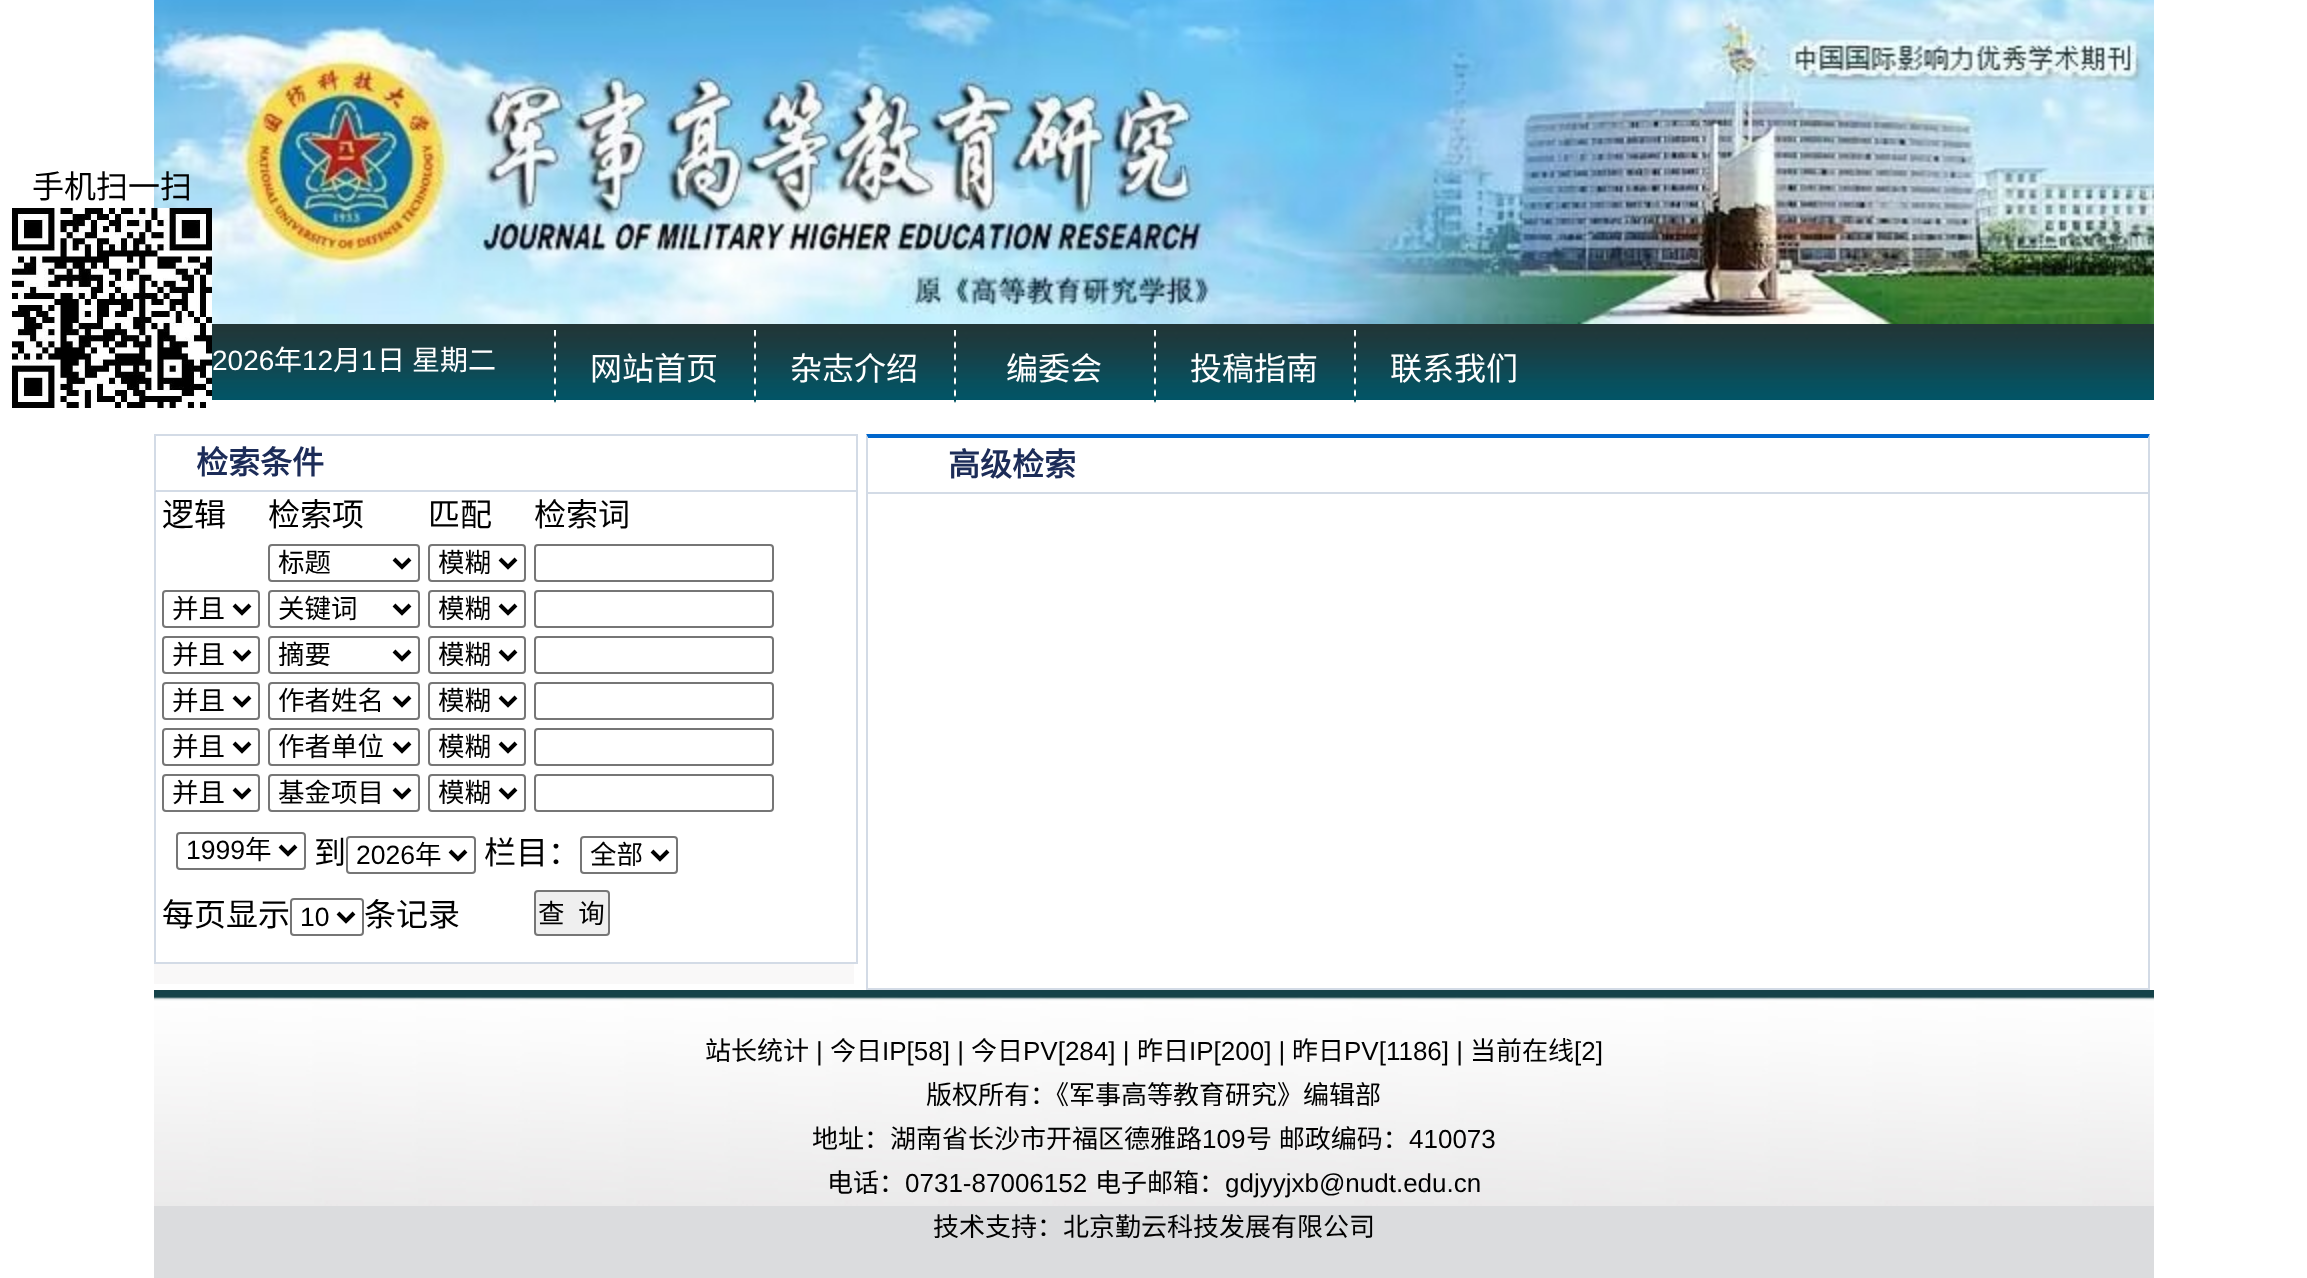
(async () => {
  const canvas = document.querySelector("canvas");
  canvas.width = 2307;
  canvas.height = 1278;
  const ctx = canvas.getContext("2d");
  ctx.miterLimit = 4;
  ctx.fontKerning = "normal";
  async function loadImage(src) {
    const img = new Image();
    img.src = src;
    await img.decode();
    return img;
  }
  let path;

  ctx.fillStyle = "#ffffff";
  ctx.fillRect(0, 0, 2307, 1278);
  ctx.drawImage(await loadImage("img/2.png"), 154, 0, 2000, 324);
  ctx.drawImage(await loadImage("img/1.png"), 12, 208, 200, 200);
  ctx.drawImage(await loadImage("img/3.png"), 212, 324, 1942, 76);
  ctx.drawImage(await loadImage("img/4.png"), 554, 330, 2, 73);
  ctx.drawImage(await loadImage("img/4.png"), 754, 330, 2, 73);
  ctx.drawImage(await loadImage("img/4.png"), 954, 330, 2, 73);
  ctx.drawImage(await loadImage("img/4.png"), 1154, 330, 2, 73);
  ctx.drawImage(await loadImage("img/4.png"), 1354, 330, 2, 73);
  ctx.fillStyle = "#f9f8f8";
  ctx.fillRect(154, 964, 700, 20);
  ctx.strokeStyle = "#d3dbe6";
  ctx.lineWidth = 2;
  ctx.strokeRect(155, 435, 702, 528);
  ctx.fillStyle = "#d3dbe6";
  ctx.fillRect(156, 490, 700, 2);
  ctx.beginPath();
  ctx.roundRect(269, 545, 150, 36, 3);
  ctx.strokeStyle = "#767676";
  ctx.stroke();
  path = new Path2D("M394 559L402 567L410 559");
  ctx.strokeStyle = "#000000";
  ctx.lineWidth = 4;
  ctx.stroke(path);
  ctx.beginPath();
  ctx.roundRect(429, 545, 96, 36, 3);
  ctx.strokeStyle = "#767676";
  ctx.lineWidth = 2;
  ctx.stroke();
  path = new Path2D("M500 559L508 567L516 559");
  ctx.strokeStyle = "#000000";
  ctx.lineWidth = 4;
  ctx.stroke(path);
  ctx.beginPath();
  ctx.roundRect(535, 545, 238, 36, 3);
  ctx.strokeStyle = "#767676";
  ctx.lineWidth = 2;
  ctx.stroke();
  ctx.beginPath();
  ctx.roundRect(163, 591, 96, 36, 3);
  ctx.stroke();
  path = new Path2D("M234 605L242 613L250 605");
  ctx.strokeStyle = "#000000";
  ctx.lineWidth = 4;
  ctx.stroke(path);
  ctx.beginPath();
  ctx.roundRect(269, 591, 150, 36, 3);
  ctx.strokeStyle = "#767676";
  ctx.lineWidth = 2;
  ctx.stroke();
  path = new Path2D("M394 605L402 613L410 605");
  ctx.strokeStyle = "#000000";
  ctx.lineWidth = 4;
  ctx.stroke(path);
  ctx.beginPath();
  ctx.roundRect(429, 591, 96, 36, 3);
  ctx.strokeStyle = "#767676";
  ctx.lineWidth = 2;
  ctx.stroke();
  path = new Path2D("M500 605L508 613L516 605");
  ctx.strokeStyle = "#000000";
  ctx.lineWidth = 4;
  ctx.stroke(path);
  ctx.beginPath();
  ctx.roundRect(535, 591, 238, 36, 3);
  ctx.strokeStyle = "#767676";
  ctx.lineWidth = 2;
  ctx.stroke();
  ctx.beginPath();
  ctx.roundRect(163, 637, 96, 36, 3);
  ctx.stroke();
  path = new Path2D("M234 651L242 659L250 651");
  ctx.strokeStyle = "#000000";
  ctx.lineWidth = 4;
  ctx.stroke(path);
  ctx.beginPath();
  ctx.roundRect(269, 637, 150, 36, 3);
  ctx.strokeStyle = "#767676";
  ctx.lineWidth = 2;
  ctx.stroke();
  path = new Path2D("M394 651L402 659L410 651");
  ctx.strokeStyle = "#000000";
  ctx.lineWidth = 4;
  ctx.stroke(path);
  ctx.beginPath();
  ctx.roundRect(429, 637, 96, 36, 3);
  ctx.strokeStyle = "#767676";
  ctx.lineWidth = 2;
  ctx.stroke();
  path = new Path2D("M500 651L508 659L516 651");
  ctx.strokeStyle = "#000000";
  ctx.lineWidth = 4;
  ctx.stroke(path);
  ctx.beginPath();
  ctx.roundRect(535, 637, 238, 36, 3);
  ctx.strokeStyle = "#767676";
  ctx.lineWidth = 2;
  ctx.stroke();
  ctx.beginPath();
  ctx.roundRect(163, 683, 96, 36, 3);
  ctx.stroke();
  path = new Path2D("M234 697L242 705L250 697");
  ctx.strokeStyle = "#000000";
  ctx.lineWidth = 4;
  ctx.stroke(path);
  ctx.beginPath();
  ctx.roundRect(269, 683, 150, 36, 3);
  ctx.strokeStyle = "#767676";
  ctx.lineWidth = 2;
  ctx.stroke();
  path = new Path2D("M394 697L402 705L410 697");
  ctx.strokeStyle = "#000000";
  ctx.lineWidth = 4;
  ctx.stroke(path);
  ctx.beginPath();
  ctx.roundRect(429, 683, 96, 36, 3);
  ctx.strokeStyle = "#767676";
  ctx.lineWidth = 2;
  ctx.stroke();
  path = new Path2D("M500 697L508 705L516 697");
  ctx.strokeStyle = "#000000";
  ctx.lineWidth = 4;
  ctx.stroke(path);
  ctx.beginPath();
  ctx.roundRect(535, 683, 238, 36, 3);
  ctx.strokeStyle = "#767676";
  ctx.lineWidth = 2;
  ctx.stroke();
  ctx.beginPath();
  ctx.roundRect(163, 729, 96, 36, 3);
  ctx.stroke();
  path = new Path2D("M234 743L242 751L250 743");
  ctx.strokeStyle = "#000000";
  ctx.lineWidth = 4;
  ctx.stroke(path);
  ctx.beginPath();
  ctx.roundRect(269, 729, 150, 36, 3);
  ctx.strokeStyle = "#767676";
  ctx.lineWidth = 2;
  ctx.stroke();
  path = new Path2D("M394 743L402 751L410 743");
  ctx.strokeStyle = "#000000";
  ctx.lineWidth = 4;
  ctx.stroke(path);
  ctx.beginPath();
  ctx.roundRect(429, 729, 96, 36, 3);
  ctx.strokeStyle = "#767676";
  ctx.lineWidth = 2;
  ctx.stroke();
  path = new Path2D("M500 743L508 751L516 743");
  ctx.strokeStyle = "#000000";
  ctx.lineWidth = 4;
  ctx.stroke(path);
  ctx.beginPath();
  ctx.roundRect(535, 729, 238, 36, 3);
  ctx.strokeStyle = "#767676";
  ctx.lineWidth = 2;
  ctx.stroke();
  ctx.beginPath();
  ctx.roundRect(163, 775, 96, 36, 3);
  ctx.stroke();
  path = new Path2D("M234 789L242 797L250 789");
  ctx.strokeStyle = "#000000";
  ctx.lineWidth = 4;
  ctx.stroke(path);
  ctx.beginPath();
  ctx.roundRect(269, 775, 150, 36, 3);
  ctx.strokeStyle = "#767676";
  ctx.lineWidth = 2;
  ctx.stroke();
  path = new Path2D("M394 789L402 797L410 789");
  ctx.strokeStyle = "#000000";
  ctx.lineWidth = 4;
  ctx.stroke(path);
  ctx.beginPath();
  ctx.roundRect(429, 775, 96, 36, 3);
  ctx.strokeStyle = "#767676";
  ctx.lineWidth = 2;
  ctx.stroke();
  path = new Path2D("M500 789L508 797L516 789");
  ctx.strokeStyle = "#000000";
  ctx.lineWidth = 4;
  ctx.stroke(path);
  ctx.beginPath();
  ctx.roundRect(535, 775, 238, 36, 3);
  ctx.strokeStyle = "#767676";
  ctx.lineWidth = 2;
  ctx.stroke();
  ctx.beginPath();
  ctx.roundRect(177, 833, 128, 36, 3);
  ctx.stroke();
  path = new Path2D("M280 846L288 854L296 846");
  ctx.strokeStyle = "#000000";
  ctx.lineWidth = 4;
  ctx.stroke(path);
  ctx.beginPath();
  ctx.roundRect(347, 837, 128, 36, 3);
  ctx.strokeStyle = "#767676";
  ctx.lineWidth = 2;
  ctx.stroke();
  path = new Path2D("M450 851L458 859L466 851");
  ctx.strokeStyle = "#000000";
  ctx.lineWidth = 4;
  ctx.stroke(path);
  ctx.beginPath();
  ctx.roundRect(581, 837, 96, 36, 3);
  ctx.strokeStyle = "#767676";
  ctx.lineWidth = 2;
  ctx.stroke();
  path = new Path2D("M652 851L660 859L668 851");
  ctx.strokeStyle = "#000000";
  ctx.lineWidth = 4;
  ctx.stroke(path);
  ctx.beginPath();
  ctx.roundRect(291, 899, 72, 36, 3);
  ctx.strokeStyle = "#767676";
  ctx.lineWidth = 2;
  ctx.stroke();
  path = new Path2D("M338 913L346 921L354 913");
  ctx.strokeStyle = "#000000";
  ctx.lineWidth = 4;
  ctx.stroke(path);
  ctx.fillStyle = "#efefef";
  ctx.beginPath();
  ctx.roundRect(535, 891, 74, 44, 3);
  ctx.fill();
  ctx.strokeStyle = "#767676";
  ctx.lineWidth = 2;
  ctx.stroke();
  ctx.fillStyle = "#0066cc";
  path = new Path2D("M866 434H2150L2148 438H868Z");
  ctx.fill(path);
  ctx.fillStyle = "#d3dbe6";
  path = new Path2D("M2150 434V990L2148 988V438Z");
  ctx.fill(path);
  ctx.fillRect(866, 988, 1284, 2);
  path = new Path2D("M866 990V434L868 438V988Z");
  ctx.fill(path);
  ctx.fillRect(868, 492, 1280, 2);
  ctx.fillStyle = "#dbdcde";
  ctx.fillRect(154, 1206, 2000, 72);
  ctx.drawImage(await loadImage("img/5.png"), 154, 990, 2000, 216);
  ctx.font = "32px Noto Sans CJK SC";
  ctx.fillStyle = "#000000";
  ctx.fillText("手机扫一扫", 32, 198);
  ctx.font = "28px Liberation Sans";
  ctx.fillStyle = "#ffffff";
  ctx.fillText("2026", 212, 370);
  ctx.font = "28px Noto Sans CJK SC";
  ctx.fillText("年", 274, 370);
  ctx.font = "28px Liberation Sans";
  ctx.fillText("12", 302, 370);
  ctx.font = "28px Noto Sans CJK SC";
  ctx.fillText("月", 333, 370);
  ctx.font = "28px Liberation Sans";
  ctx.fillText("1", 361, 370);
  ctx.font = "28px Noto Sans CJK SC";
  ctx.fillText("日", 377, 370);
  ctx.fillText("星期二", 412, 370);
  ctx.font = "32px Noto Sans CJK SC";
  for (const [text, x, y] of [
    ["网站首页", 590, 380],
    ["杂志介绍", 790, 380],
    ["编委会", 1006, 380],
    ["投稿指南", 1190, 380],
    ["联系我们", 1390, 380],
  ]) {
    ctx.fillText(text, x, y);
  }
  ctx.font = "bold 32px Noto Sans CJK SC";
  ctx.fillStyle = "#1c2c58";
  ctx.fillText("检索条件", 196, 474);
  ctx.font = "32px Noto Sans CJK SC";
  ctx.fillStyle = "#000000";
  for (const [text, x, y] of [
    ["逻辑", 162, 526],
    ["检索项", 268, 526],
    ["匹配", 428, 526],
    ["检索词", 534, 526],
  ]) {
    ctx.fillText(text, x, y);
  }
  ctx.font = "26.5px Noto Sans CJK SC";
  for (const [text, x, y] of [
    ["标题", 278, 572],
    ["模糊", 438, 572],
    ["并且", 172, 618],
    ["关键词", 278, 618],
    ["模糊", 438, 618],
    ["并且", 172, 664],
    ["摘要", 278, 664],
    ["模糊", 438, 664],
    ["并且", 172, 710],
    ["作者姓名", 278, 710],
    ["模糊", 438, 710],
    ["并且", 172, 756],
    ["作者单位", 278, 756],
    ["模糊", 438, 756],
    ["并且", 172, 802],
    ["基金项目", 278, 802],
    ["模糊", 438, 802],
  ]) {
    ctx.fillText(text, x, y);
  }
  ctx.font = "26.5px Liberation Sans";
  ctx.fillText("1999", 186, 859);
  ctx.font = "26.5px Noto Sans CJK SC";
  ctx.fillText("年", 245, 859);
  ctx.font = "32px Noto Sans CJK SC";
  ctx.fillText("到", 314, 864);
  ctx.font = "26.5px Liberation Sans";
  ctx.fillText("2026", 356, 864);
  ctx.font = "26.5px Noto Sans CJK SC";
  ctx.fillText("年", 415, 864);
  ctx.font = "32px Noto Sans CJK SC";
  ctx.fillText("栏目：", 484, 864);
  ctx.font = "26.5px Noto Sans CJK SC";
  ctx.fillText("全部", 590, 864);
  ctx.font = "32px Noto Sans CJK SC";
  ctx.fillText("每页显示", 162, 926);
  ctx.font = "26.5px Liberation Sans";
  ctx.fillText("10", 300, 926);
  ctx.font = "32px Noto Sans CJK SC";
  ctx.fillText("条记录", 364, 926);
  ctx.wordSpacing = "1px";
  ctx.font = "26.5px Noto Sans CJK SC";
  ctx.fillText("查  询", 538, 923);
  ctx.wordSpacing = "0px";
  ctx.font = "bold 32px Noto Sans CJK SC";
  ctx.fillStyle = "#1c2c58";
  ctx.fillText("高级检索", 948, 476);
  ctx.font = "26px Noto Sans CJK SC";
  ctx.fillStyle = "#000000";
  ctx.fillText("站长统计", 705, 1060);
  ctx.font = "26px Liberation Sans";
  ctx.fillText("|", 816, 1060);
  ctx.font = "26px Noto Sans CJK SC";
  ctx.fillText("今日", 830, 1060);
  ctx.font = "26px Liberation Sans";
  ctx.fillText("IP[58] |", 882, 1060);
  ctx.font = "26px Noto Sans CJK SC";
  ctx.fillText("今日", 971, 1060);
  ctx.font = "26px Liberation Sans";
  ctx.fillText("PV[284] |", 1023, 1060);
  ctx.font = "26px Noto Sans CJK SC";
  ctx.fillText("昨日", 1137, 1060);
  ctx.font = "26px Liberation Sans";
  ctx.fillText("IP[200] |", 1189, 1060);
  ctx.font = "26px Noto Sans CJK SC";
  ctx.fillText("昨日", 1292, 1060);
  ctx.font = "26px Liberation Sans";
  ctx.fillText("PV[1186] |", 1344, 1060);
  ctx.font = "26px Noto Sans CJK SC";
  ctx.fillText("当前在线", 1470, 1060);
  ctx.font = "26px Liberation Sans";
  ctx.fillText("[2]", 1574, 1060);
  ctx.font = "26px Noto Sans CJK SC";
  ctx.fillText("版权所有：《军事高等教育研究》编辑部", 926, 1104);
  ctx.fillText("地址：湖南省长沙市开福区德雅路", 812, 1148);
  ctx.font = "26px Liberation Sans";
  ctx.fillText("109", 1202, 1148);
  ctx.wordSpacing = "1px";
  ctx.font = "26px Noto Sans CJK SC";
  ctx.fillText("号 邮政编码：", 1246, 1148);
  ctx.wordSpacing = "0px";
  ctx.font = "26px Liberation Sans";
  ctx.fillText("410073", 1409, 1148);
  ctx.font = "26px Noto Sans CJK SC";
  ctx.fillText("电话：", 827, 1192);
  ctx.font = "26px Liberation Sans";
  ctx.fillText("0731-87006152", 905, 1192);
  ctx.font = "26px Noto Sans CJK SC";
  ctx.fillText("电子邮箱：", 1095, 1192);
  ctx.font = "26px Liberation Sans";
  ctx.fillText("gdjyyjxb@nudt.edu.cn", 1225, 1192);
  ctx.font = "26px Noto Sans CJK SC";
  ctx.fillText("技术支持：北京勤云科技发展有限公司", 933, 1236);
})();
